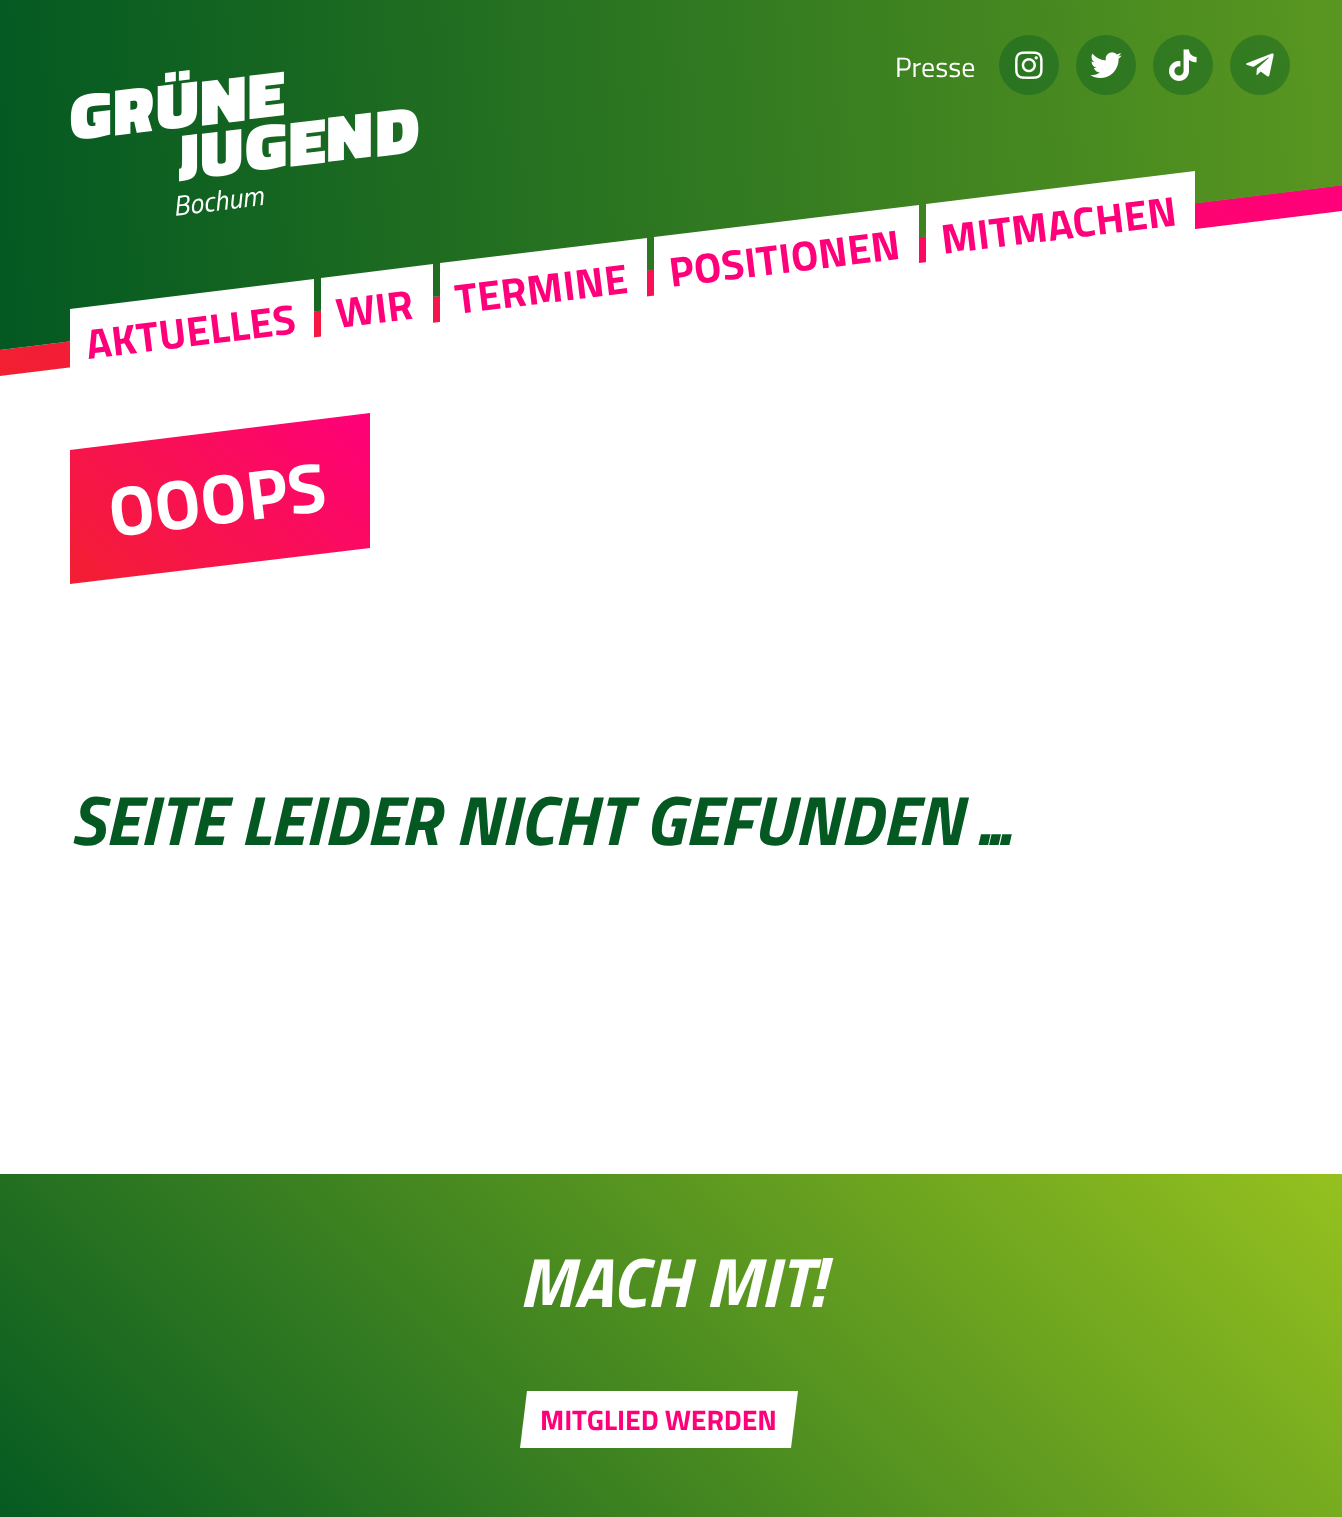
(async () => {
  const canvas = document.querySelector("canvas");
  canvas.width = 1342;
  canvas.height = 1517;
  const ctx = canvas.getContext("2d");
  ctx.miterLimit = 4;
  ctx.fontKerning = "normal";
  async function loadImage(src) {
    const img = new Image();
    img.src = src;
    await img.decode();
    return img;
  }
  let gradient, path;

  ctx.fillStyle = "#ffffff";
  ctx.fillRect(0, 0, 1342, 1517);
  gradient = ctx.createLinearGradient(329, 665, 1013, -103);
  gradient.addColorStop(0, "#f21f31");
  gradient.addColorStop(1, "#ff007a");
  ctx.fillStyle = gradient;
  path = new Path2D("M0 350L1342 185V211L0 376Z");
  ctx.fill(path);
  gradient = ctx.createLinearGradient(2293, 176, 7.3, 313);
  gradient.addColorStop(0, "#95c11f");
  gradient.addColorStop(1, "#045922");
  ctx.fillStyle = gradient;
  path = new Path2D("M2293 0V69L-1 350V0Z");
  ctx.fill(path, "evenodd");
  ctx.fillStyle = "rgba(4, 89, 34, 0.4)";
  ctx.beginPath();
  ctx.arc(1029, 65, 30, 0, Math.PI * 2);
  ctx.fill();
  ctx.drawImage(await loadImage("img/1.png"), 1015, 51, 28, 28);
  ctx.beginPath();
  ctx.arc(1106, 65, 30, 0, Math.PI * 2);
  ctx.fill();
  ctx.drawImage(await loadImage("img/2.png"), 1090, 52, 32, 26);
  ctx.beginPath();
  ctx.arc(1183, 65, 30, 0, Math.PI * 2);
  ctx.fill();
  ctx.drawImage(await loadImage("img/3.png"), 1169, 49, 28, 32);
  ctx.beginPath();
  ctx.arc(1260, 65, 30, 0, Math.PI * 2);
  ctx.fill();
  ctx.drawImage(await loadImage("img/4.png"), 1246, 53, 28, 24);
  ctx.fillStyle = "#ffffff";
  path = new Path2D("M70 309L314 279V355L70 385Z");
  ctx.fill(path);
  path = new Path2D("M321 278L433 264V340L321 354Z");
  ctx.fill(path);
  path = new Path2D("M440 263L647 238V314L440 340Z");
  ctx.fill(path);
  path = new Path2D("M654 237L919 205V281L654 313Z");
  ctx.fill(path);
  path = new Path2D("M926 204L1195 171V247L926 280Z");
  ctx.fill(path);
  ctx.drawImage(await loadImage("img/5.png"), 70, 70, 349, 112);
  gradient = ctx.createLinearGradient(111, 621, 329, 377);
  gradient.addColorStop(0, "#f21f31");
  gradient.addColorStop(1, "#ff007a");
  ctx.fillStyle = gradient;
  path = new Path2D("M70 450L370 413V548L70 584Z");
  ctx.fill(path);
  gradient = ctx.createLinearGradient(245, 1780, 1097, 929);
  gradient.addColorStop(0, "#045922");
  gradient.addColorStop(1, "#95c11f");
  ctx.fillStyle = gradient;
  ctx.fillRect(0, 1174, 1342, 343);
  ctx.fillStyle = "#ffffff";
  path = new Path2D("M527 1391H798L791 1448H520Z");
  ctx.fill(path);
  ctx.font = "28px Titillium Web";
  ctx.fillText("Presse", 895, 77);
  ctx.letterSpacing = "0.25px";
  ctx.font = "bold 42px Titillium Web";
  ctx.fillStyle = "#ff007a";
  ctx.save();
  ctx.translate(88, 359);
  ctx.rotate(-7 * Math.PI / 180);
  ctx.fillText("AKTUELLES", 0, 0);
  ctx.restore();
  ctx.letterSpacing = "0px";
  ctx.save();
  ctx.translate(338, 328);
  ctx.rotate(-7 * Math.PI / 180);
  ctx.fillText("WIR", 0, 0);
  ctx.restore();
  ctx.letterSpacing = "0.25px";
  ctx.save();
  ctx.translate(457, 314);
  ctx.rotate(-7 * Math.PI / 180);
  ctx.fillText("TERMINE", 0, 0);
  ctx.restore();
  ctx.save();
  ctx.translate(671, 287);
  ctx.rotate(-7 * Math.PI / 180);
  ctx.fillText("POSITIONEN", 0, 0);
  ctx.restore();
  ctx.save();
  ctx.translate(943, 254);
  ctx.rotate(-7 * Math.PI / 180);
  ctx.fillText("MITMACHEN", 0, 0);
  ctx.restore();
  ctx.letterSpacing = "0px";
  ctx.font = "italic 28px Titillium Web";
  ctx.fillStyle = "#ffffff";
  ctx.save();
  ctx.translate(174, 216);
  ctx.rotate(-7 * Math.PI / 180);
  ctx.fillText("Bochum", 0, 0);
  ctx.restore();
  ctx.letterSpacing = "0.5px";
  ctx.font = "bold 70px Titillium Web";
  ctx.save();
  ctx.translate(112, 537);
  ctx.rotate(-7 * Math.PI / 180);
  ctx.fillText("OOOPS", 0, 0);
  ctx.restore();
  ctx.letterSpacing = "0px";
  ctx.font = "italic bold 70px Titillium Web";
  ctx.fillStyle = "#045922";
  ctx.fillText("SEITE LEIDER NICHT GEFUNDEN ...", 70, 845);
  ctx.fillStyle = "#ffffff";
  ctx.fillText("MACH MIT!", 519, 1307);
  ctx.letterSpacing = "-0.1px";
  ctx.font = "bold 28.25px Titillium Web";
  ctx.fillStyle = "#ff007a";
  ctx.fillText("MITGLIED WERDEN", 540, 1430);
})();
